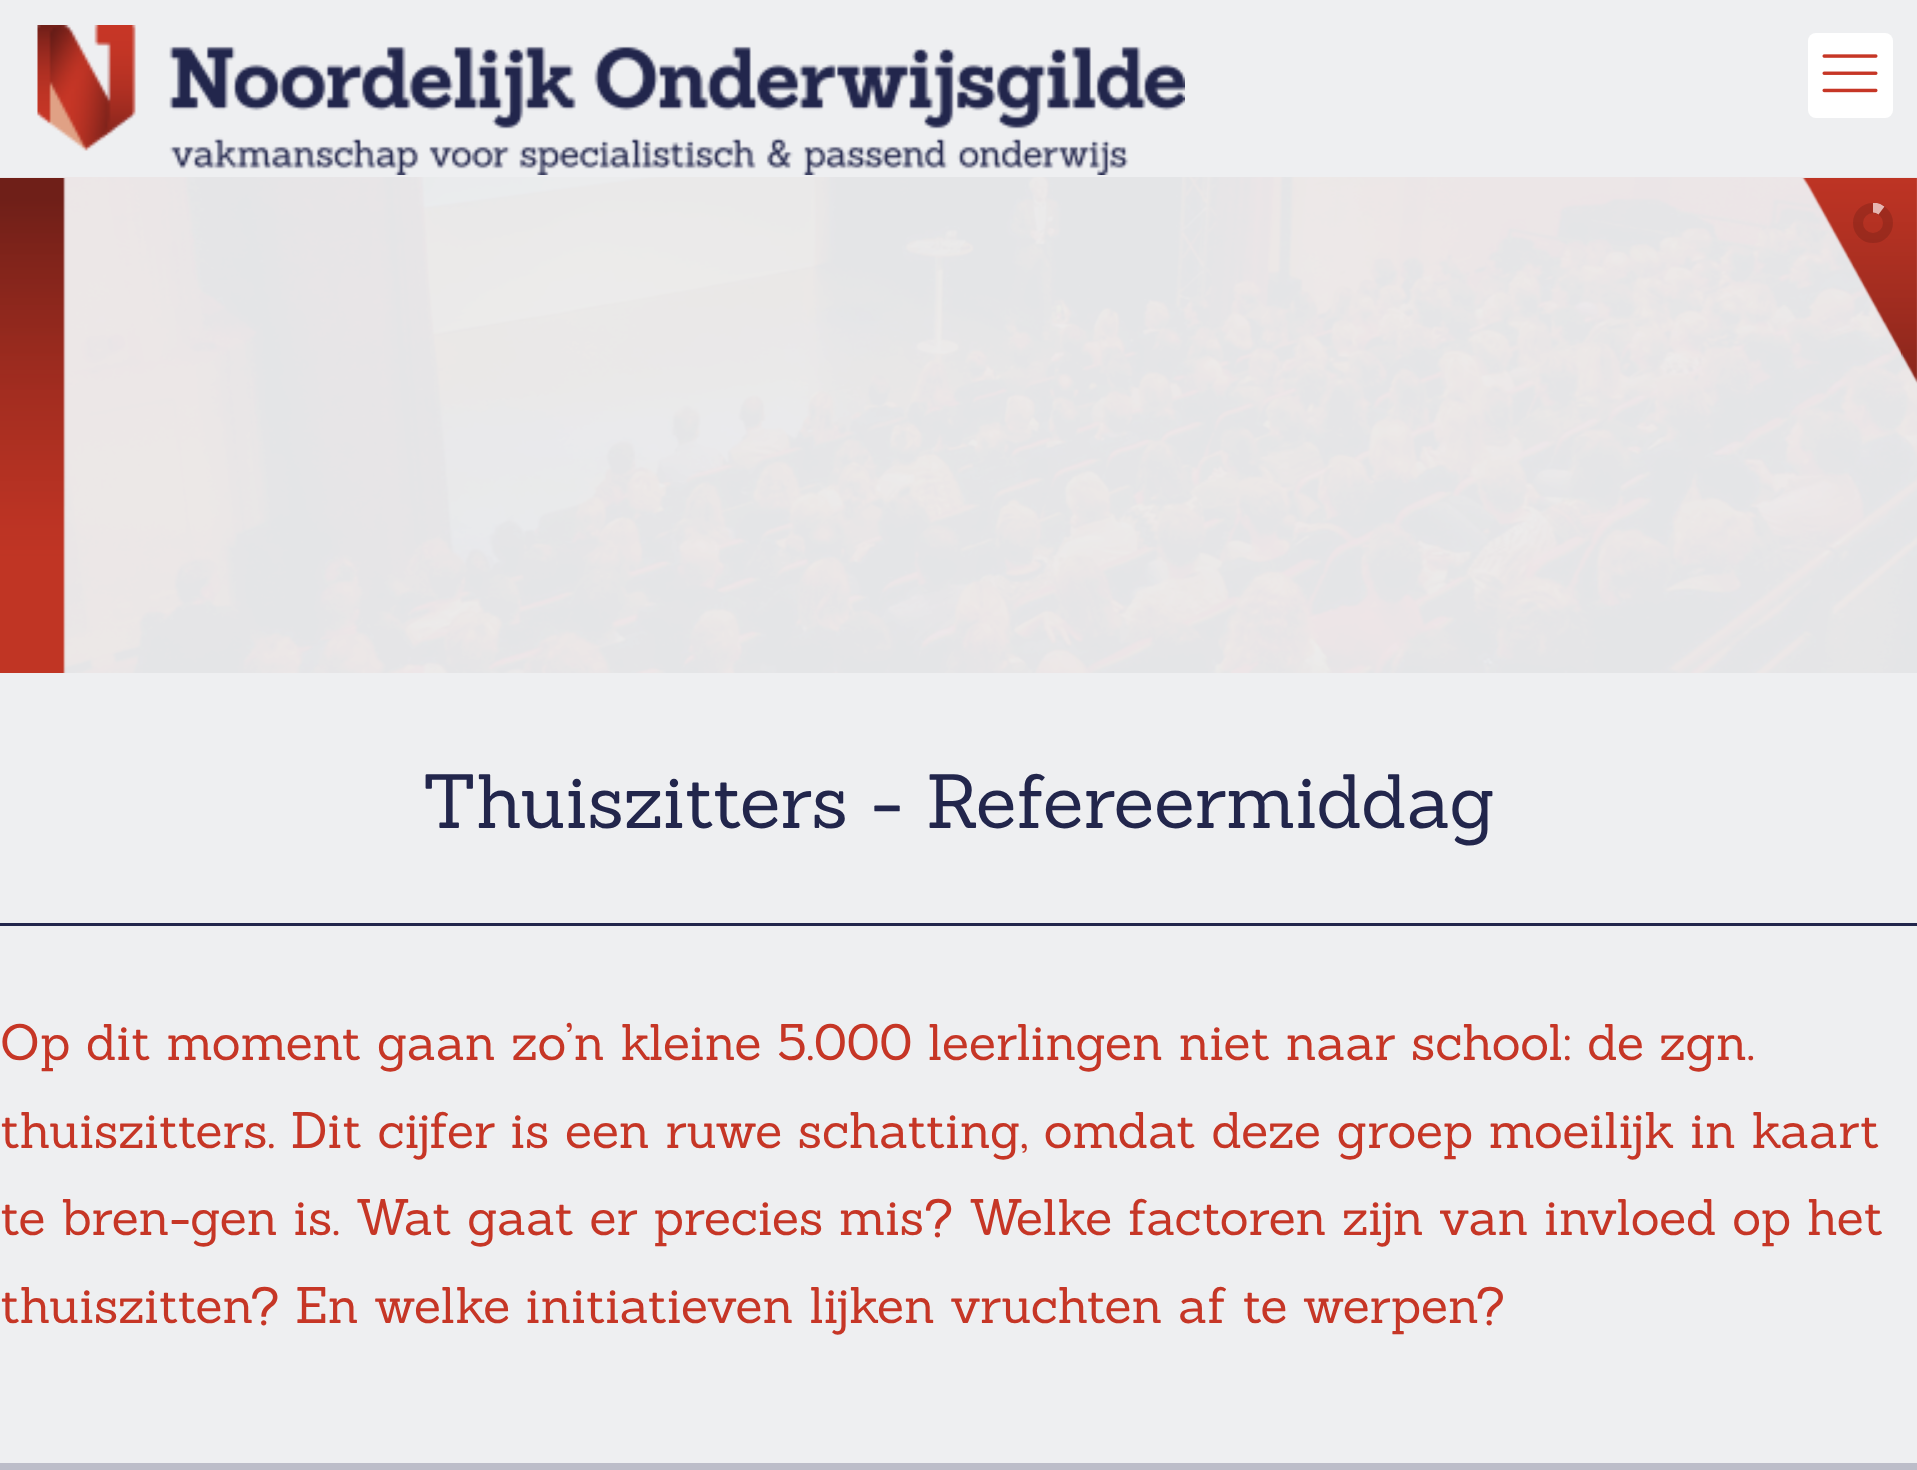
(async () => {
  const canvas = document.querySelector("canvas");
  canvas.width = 1917;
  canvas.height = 1470;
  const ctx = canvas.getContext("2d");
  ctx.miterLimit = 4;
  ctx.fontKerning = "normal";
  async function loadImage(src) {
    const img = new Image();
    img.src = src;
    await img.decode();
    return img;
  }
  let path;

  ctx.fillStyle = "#eeeff1";
  ctx.fillRect(0, 0, 1917, 1470);
  ctx.drawImage(await loadImage("img/1.png"), 37, 25, 1148, 150);
  ctx.fillStyle = "#ffffff";
  ctx.beginPath();
  ctx.roundRect(1808, 33, 85, 85, 8);
  ctx.fill();
  ctx.drawImage(await loadImage("img/2.png"), 1822, 54, 56, 39);
  ctx.drawImage(await loadImage("img/3.png"), 0, 177, 1917, 496);
  ctx.drawImage(await loadImage("img/4.png"), 0, 178, 1917, 495);
  ctx.beginPath();
  ctx.arc(1873, 223, 15, 0, Math.PI * 2);
  ctx.strokeStyle = "rgba(0, 0, 0, 0.13)";
  ctx.lineWidth = 10;
  ctx.stroke();
  ctx.save();
  ctx.beginPath();
  ctx.rect(1873, 203, 20, 40);
  ctx.clip();
  path = new Path2D("M1868 194.5L1884.5 206.5L1860.5 238.5L1844.5 227Z");
  ctx.clip(path);
  path = new Path2D("M1881.5 210.5C1888 215.5 1889.5 224.5 1884.5 231.5C1879.5 238 1870.5 239.5 1863.5 234.5C1857 229.5 1855.5 220.5 1860.5 213.5C1865.5 207 1874.5 205.5 1881.5 210.5Z");
  ctx.strokeStyle = "#e6b7b2";
  ctx.stroke(path);
  ctx.restore();
  ctx.fillStyle = "#22264c";
  ctx.fillRect(0, 923, 1917, 3);
  ctx.fillStyle = "#bcbdc9";
  ctx.fillRect(0, 1463, 1917, 7);
  ctx.font = "75px Sanchez";
  ctx.fillStyle = "#22264c";
  ctx.fillText("Thuiszitters - Refereermiddag", 422, 828);
  ctx.font = "50px Sanchez";
  ctx.fillStyle = "#c63626";
  for (const [text, x, y] of [
    ["Op dit moment gaan zo’n kleine 5.000 leerlingen niet naar school: de zgn.", 0, 1060],
    ["thuiszitters. Dit cijfer is een ruwe schatting, omdat deze groep moeilijk in kaart", 0, 1148],
    ["te bren-gen is. Wat gaat er precies mis? Welke factoren zijn van invloed op het", 0, 1235],
    ["thuiszitten? En welke initiatieven lijken vruchten af te werpen?", 0, 1323],
  ]) {
    ctx.fillText(text, x, y);
  }
})();
